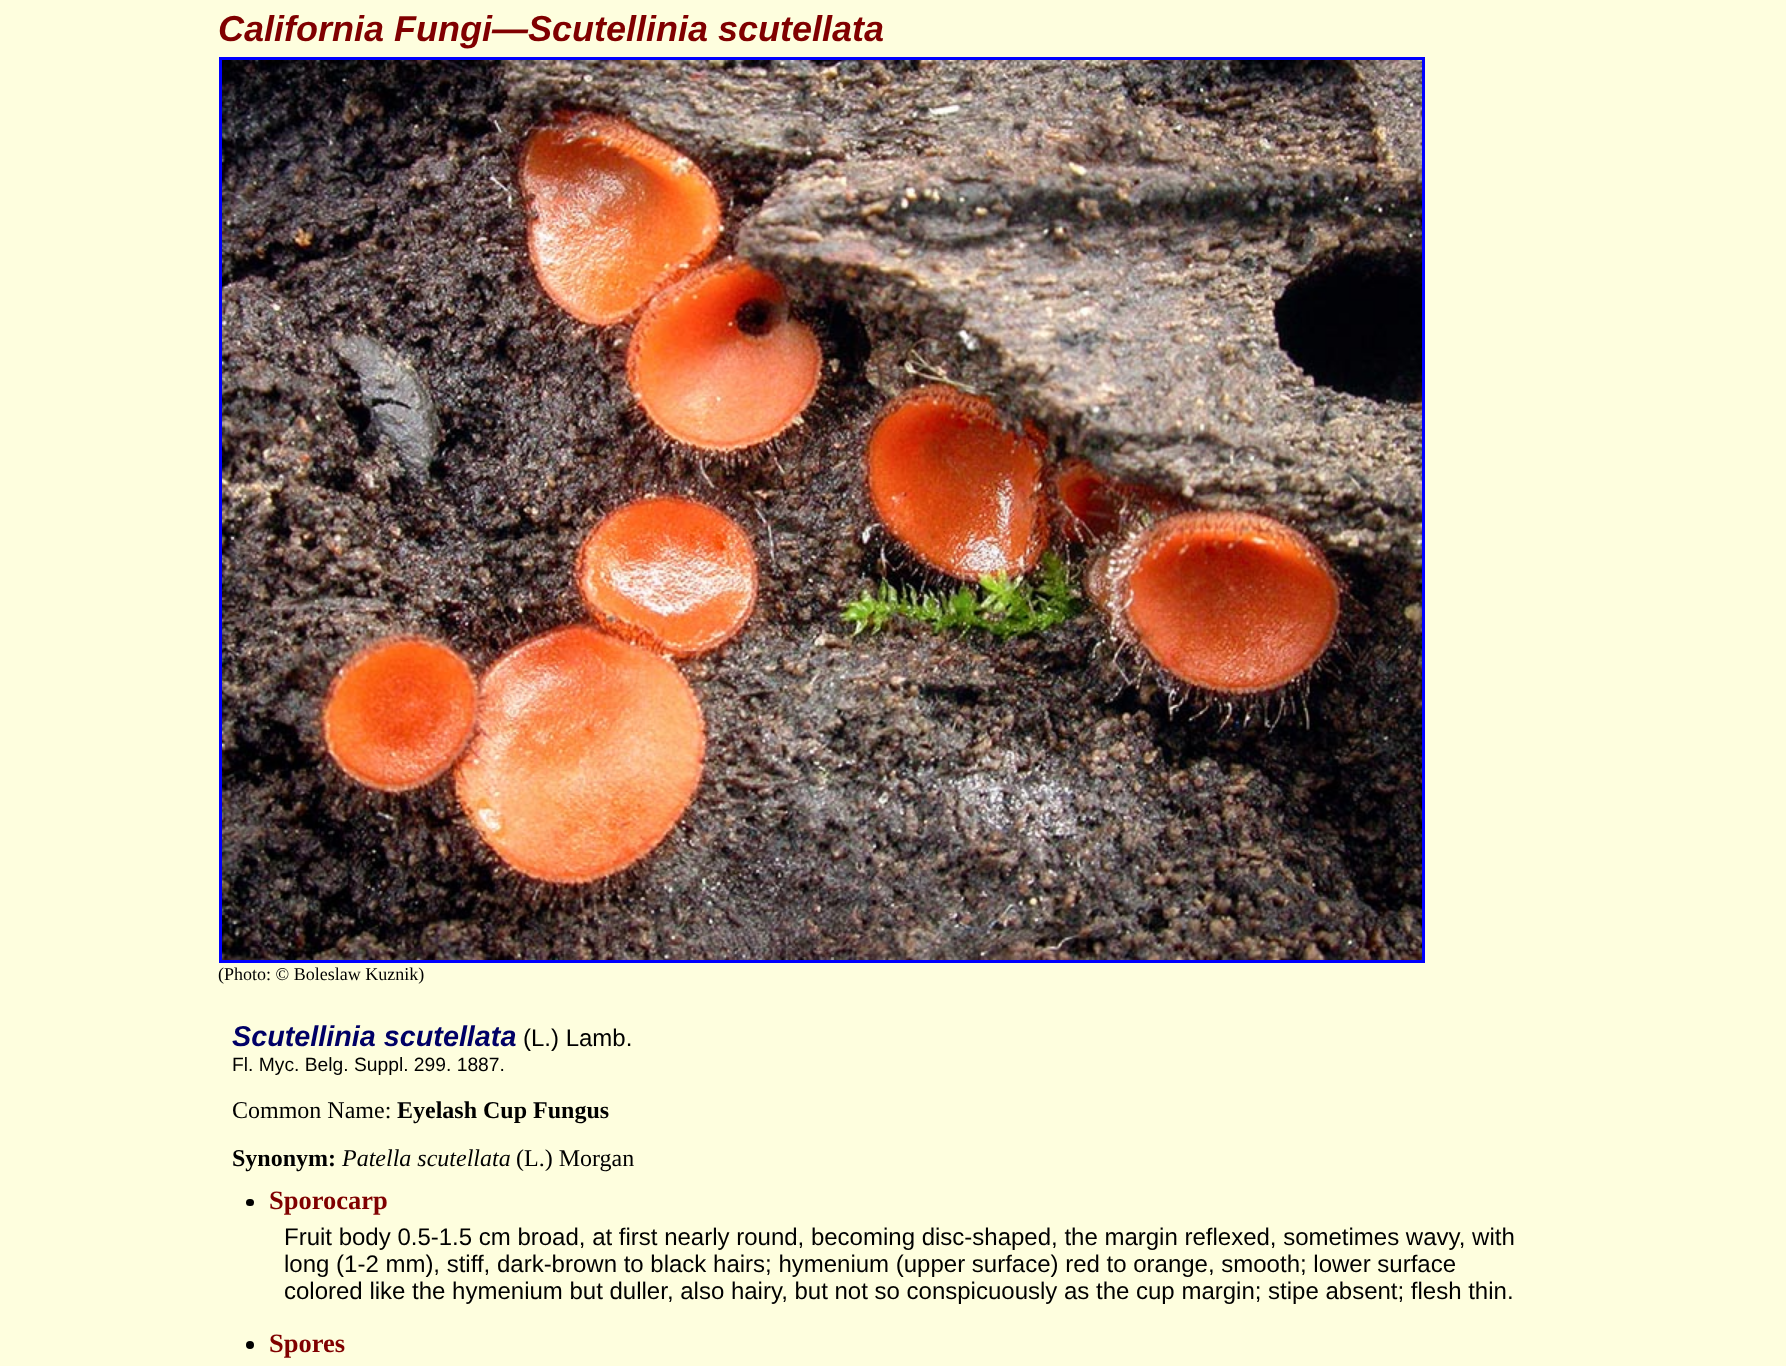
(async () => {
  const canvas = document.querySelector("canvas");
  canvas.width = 1786;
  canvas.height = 1366;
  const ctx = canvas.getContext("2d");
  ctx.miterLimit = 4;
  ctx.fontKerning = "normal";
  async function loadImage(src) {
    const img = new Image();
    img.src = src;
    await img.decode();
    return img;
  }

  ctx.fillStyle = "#fefede";
  ctx.fillRect(0, 0, 1786, 1366);
  ctx.strokeStyle = "#0000ff";
  ctx.lineWidth = 3;
  ctx.strokeRect(220.5, 58.5, 1203, 903);
  ctx.drawImage(await loadImage("img/1.png"), 222, 60, 1200, 900);
  ctx.fillStyle = "#000000";
  ctx.beginPath();
  ctx.roundRect(246, 1199, 8, 7, 3.5);
  ctx.fill();
  ctx.beginPath();
  ctx.arc(250, 1345, 4, 0, Math.PI * 2);
  ctx.fill();
  ctx.font = "italic bold 36px Liberation Sans";
  ctx.fillStyle = "#800000";
  ctx.fillText("California Fungi—Scutellinia scutellata", 218, 41);
  ctx.font = "18px Liberation Serif";
  ctx.fillStyle = "#000000";
  ctx.fillText("(Photo: © Boleslaw Kuznik)", 218, 980);
  ctx.font = "italic bold 28.75px Liberation Sans";
  ctx.fillStyle = "#000066";
  ctx.fillText("Scutellinia scutellata", 232, 1046);
  ctx.font = "24px Liberation Sans";
  ctx.fillStyle = "#000000";
  ctx.fillText("(L.) Lamb.", 523, 1046);
  ctx.font = "19.25px Liberation Sans";
  ctx.fillText("Fl. Myc. Belg. Suppl. 299. 1887.", 232, 1071);
  ctx.font = "24px Liberation Serif";
  ctx.fillText("Common Name:", 232, 1118);
  ctx.font = "bold 24px Liberation Serif";
  ctx.fillText("Eyelash Cup Fungus", 397, 1118);
  ctx.fillText("Synonym:", 232, 1166);
  ctx.font = "italic 24px Liberation Serif";
  ctx.fillText("Patella scutellata", 342, 1166);
  ctx.font = "24px Liberation Serif";
  ctx.fillText("(L.) Morgan", 516, 1166);
  ctx.font = "bold 26.5px Liberation Serif";
  ctx.fillStyle = "#800000";
  ctx.fillText("Sporocarp", 269, 1209);
  ctx.font = "24px Liberation Sans";
  ctx.fillStyle = "#000000";
  for (const [text, x, y] of [
    ["Fruit body 0.5-1.5 cm broad, at first nearly round, becoming disc-shaped, the margin reflexed, sometimes wavy, with", 284, 1245],
    ["long (1-2 mm), stiff, dark-brown to black hairs; hymenium (upper surface) red to orange, smooth; lower surface", 284, 1272],
    ["colored like the hymenium but duller, also hairy, but not so conspicuously as the cup margin; stipe absent; flesh thin.", 284, 1299],
  ]) {
    ctx.fillText(text, x, y);
  }
  ctx.font = "bold 26.5px Liberation Serif";
  ctx.fillStyle = "#800000";
  ctx.fillText("Spores", 269, 1352);
})();
